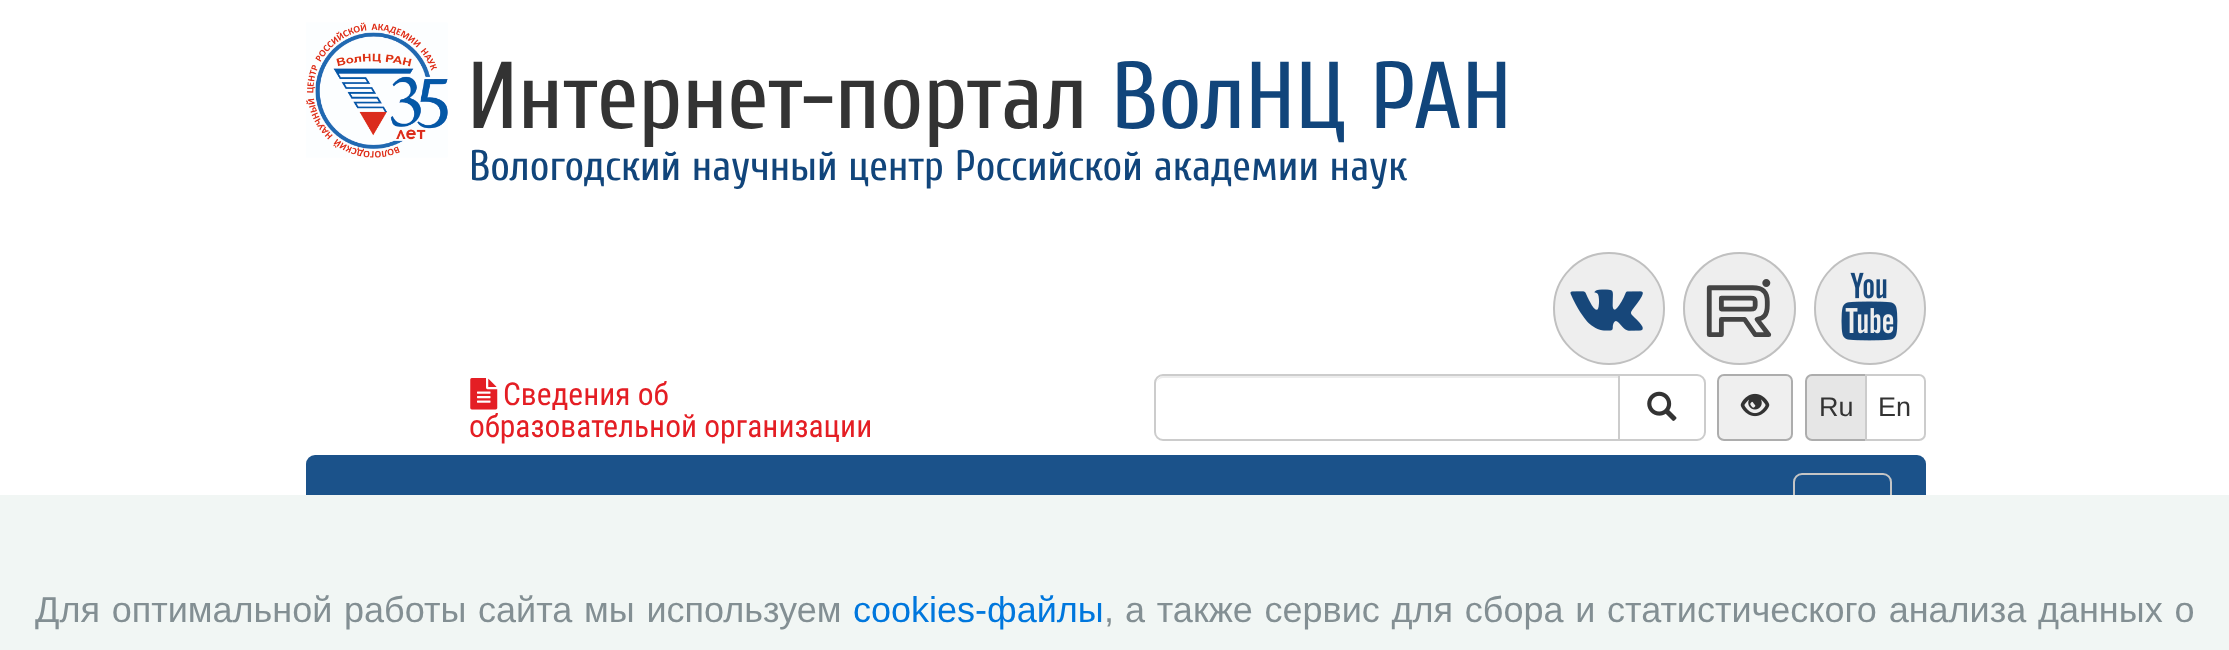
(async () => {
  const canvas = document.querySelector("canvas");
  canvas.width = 2229;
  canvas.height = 650;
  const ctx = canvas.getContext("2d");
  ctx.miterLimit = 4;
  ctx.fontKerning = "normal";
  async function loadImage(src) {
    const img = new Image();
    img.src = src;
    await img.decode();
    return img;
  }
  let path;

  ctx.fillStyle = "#ffffff";
  ctx.fillRect(0, 0, 2229, 650);
  ctx.drawImage(await loadImage("img/1.png"), 306, 22, 142, 136);
  ctx.fillStyle = "#eeeeee";
  ctx.beginPath();
  ctx.roundRect(1554, 253, 110, 111, 55);
  ctx.fill();
  ctx.strokeStyle = "#c0c0c0";
  ctx.lineWidth = 2;
  ctx.stroke();
  ctx.drawImage(await loadImage("img/2.png"), 1570, 289, 73, 42);
  ctx.beginPath();
  ctx.arc(1739.5, 308.5, 56.5, 0, Math.PI * 2);
  ctx.fill();
  ctx.drawImage(await loadImage("img/3.png"), 1706, 279, 66, 58);
  ctx.beginPath();
  ctx.arc(1739.5, 308.5, 55.5, 0, Math.PI * 2);
  ctx.stroke();
  ctx.beginPath();
  ctx.roundRect(1815, 253, 110, 111, 55);
  ctx.fill();
  ctx.stroke();
  ctx.drawImage(await loadImage("img/4.png"), 1841, 272, 57, 69);
  ctx.drawImage(await loadImage("img/5.png"), 470, 378, 28, 32);
  ctx.fillStyle = "#ececec";
  path = new Path2D("M1163 378H1618V376H1164C1161 376 1158 378 1157 381C1159 379 1161 378 1163 378Z");
  ctx.fill(path);
  ctx.beginPath();
  ctx.roundRect(1155, 375, 464, 65, [8, 0, 0, 8]);
  ctx.strokeStyle = "#cccccc";
  ctx.stroke();
  ctx.fillStyle = "#ffffff";
  ctx.beginPath();
  ctx.roundRect(1619, 375, 86, 65, [0, 8, 8, 0]);
  ctx.fill();
  ctx.stroke();
  ctx.drawImage(await loadImage("img/6.png"), 1647, 391, 30, 30);
  ctx.fillStyle = "#efefef";
  ctx.beginPath();
  ctx.roundRect(1718, 375, 74, 65, 6);
  ctx.fill();
  ctx.strokeStyle = "#adadad";
  ctx.stroke();
  ctx.drawImage(await loadImage("img/7.png"), 1740, 393, 30, 24);
  ctx.fillStyle = "#e6e6e6";
  ctx.beginPath();
  ctx.roundRect(1806, 375, 61, 65, [6, 0, 0, 6]);
  ctx.fill();
  ctx.stroke();
  ctx.fillStyle = "#ffffff";
  ctx.beginPath();
  ctx.roundRect(1866, 375, 59, 65, [0, 6, 6, 0]);
  ctx.fill();
  ctx.strokeStyle = "#cccccc";
  ctx.stroke();
  ctx.fillStyle = "#1b528a";
  ctx.beginPath();
  ctx.roundRect(306, 455, 1620, 112, 9);
  ctx.fill();
  ctx.beginPath();
  ctx.roundRect(1794, 474, 97, 74, 8);
  ctx.strokeStyle = "#c5c5c5";
  ctx.stroke();
  ctx.fillStyle = "#f1f6f4";
  ctx.fillRect(0, 495, 2229, 155);
  ctx.font = "94.5px Cuprum";
  ctx.fillStyle = "#333333";
  ctx.fillText("Интернет-портал", 467, 128);
  ctx.fillStyle = "#11457b";
  ctx.fillText("ВолНЦ РАН", 1111, 128);
  ctx.font = "42.75px Cuprum";
  ctx.fillText("Вологодский научный центр Российской академии наук", 469, 180);
  ctx.font = "31.5px Roboto Condensed";
  ctx.fillStyle = "#e41e24";
  ctx.fillText("Сведения об", 503, 405);
  ctx.fillText("образовательной организации", 469, 437);
  ctx.font = "27px Liberation Sans";
  ctx.fillStyle = "#333333";
  ctx.fillText("Ru", 1819, 416);
  ctx.fillText("En", 1878, 416);
  ctx.wordSpacing = "1.75px";
  ctx.font = "36px Liberation Sans";
  ctx.fillStyle = "#838f93";
  ctx.fillText("Для оптимальной работы сайта мы используем", 35, 622);
  ctx.wordSpacing = "0px";
  ctx.fillStyle = "#0077dd";
  ctx.fillText("cookies-файлы", 853, 622);
  ctx.fillStyle = "#838f93";
  ctx.fillText(",", 1104, 622);
  ctx.wordSpacing = "1.75px";
  ctx.fillText("а также сервис для сбора и статистического анализа данных о", 1125, 622);
})();
